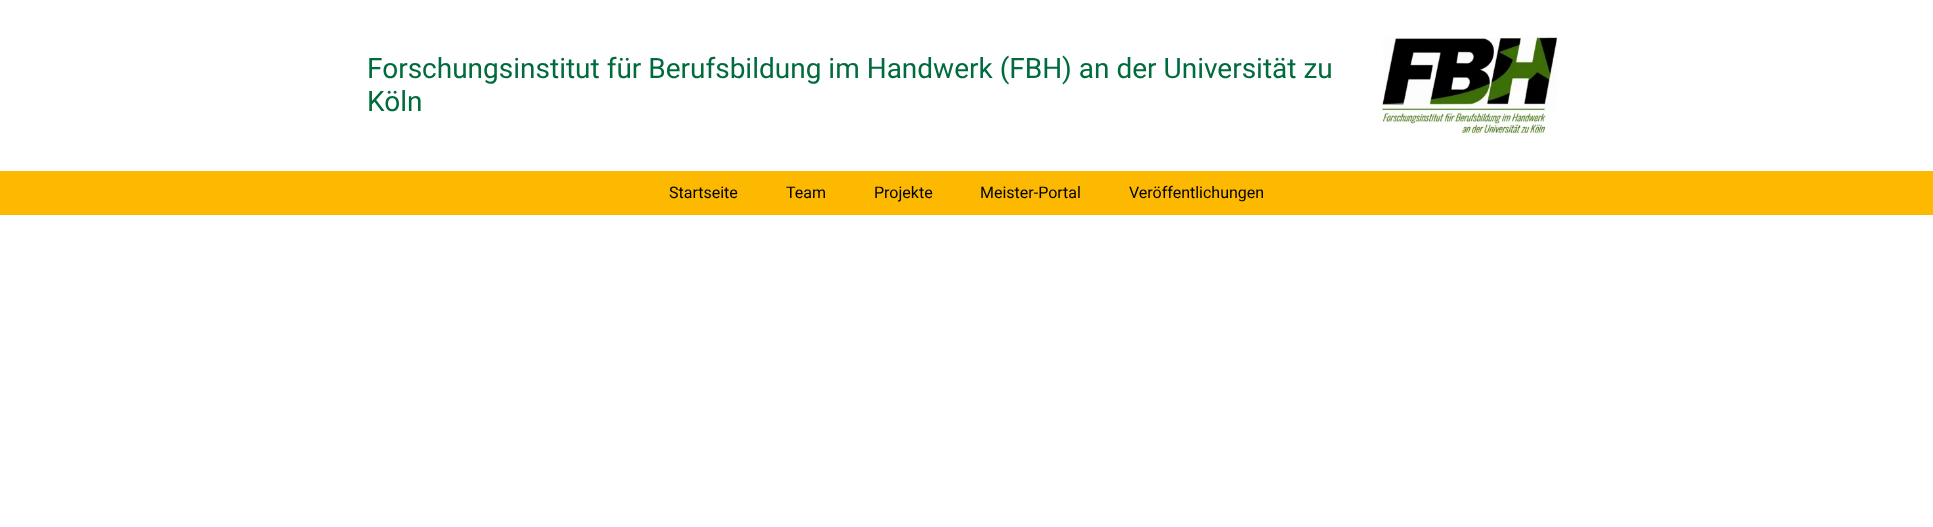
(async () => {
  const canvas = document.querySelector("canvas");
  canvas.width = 1933;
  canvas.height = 527;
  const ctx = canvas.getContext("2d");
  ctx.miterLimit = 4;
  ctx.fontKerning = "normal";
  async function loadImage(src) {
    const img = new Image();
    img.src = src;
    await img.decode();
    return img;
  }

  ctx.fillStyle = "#ffffff";
  ctx.fillRect(0, 0, 1933, 527);
  ctx.drawImage(await loadImage("img/1.png"), 1380, 35, 178, 100);
  ctx.fillStyle = "#fcb900";
  ctx.fillRect(0, 171, 1933, 44);
  ctx.font = "28px Roboto";
  ctx.fillStyle = "#006b3d";
  ctx.fillText("Forschungsinstitut für Berufsbildung im Handwerk (FBH) an der Universität zu", 367, 78);
  ctx.fillText("Köln", 367, 111);
  ctx.font = "16px Roboto";
  ctx.fillStyle = "#000000";
  for (const [text, x, y] of [
    ["Startseite", 669, 198],
    ["Team", 786, 198],
    ["Projekte", 874, 198],
    ["Meister-Portal", 980, 198],
    ["Veröffentlichungen", 1129, 198],
  ]) {
    ctx.fillText(text, x, y);
  }
})();
